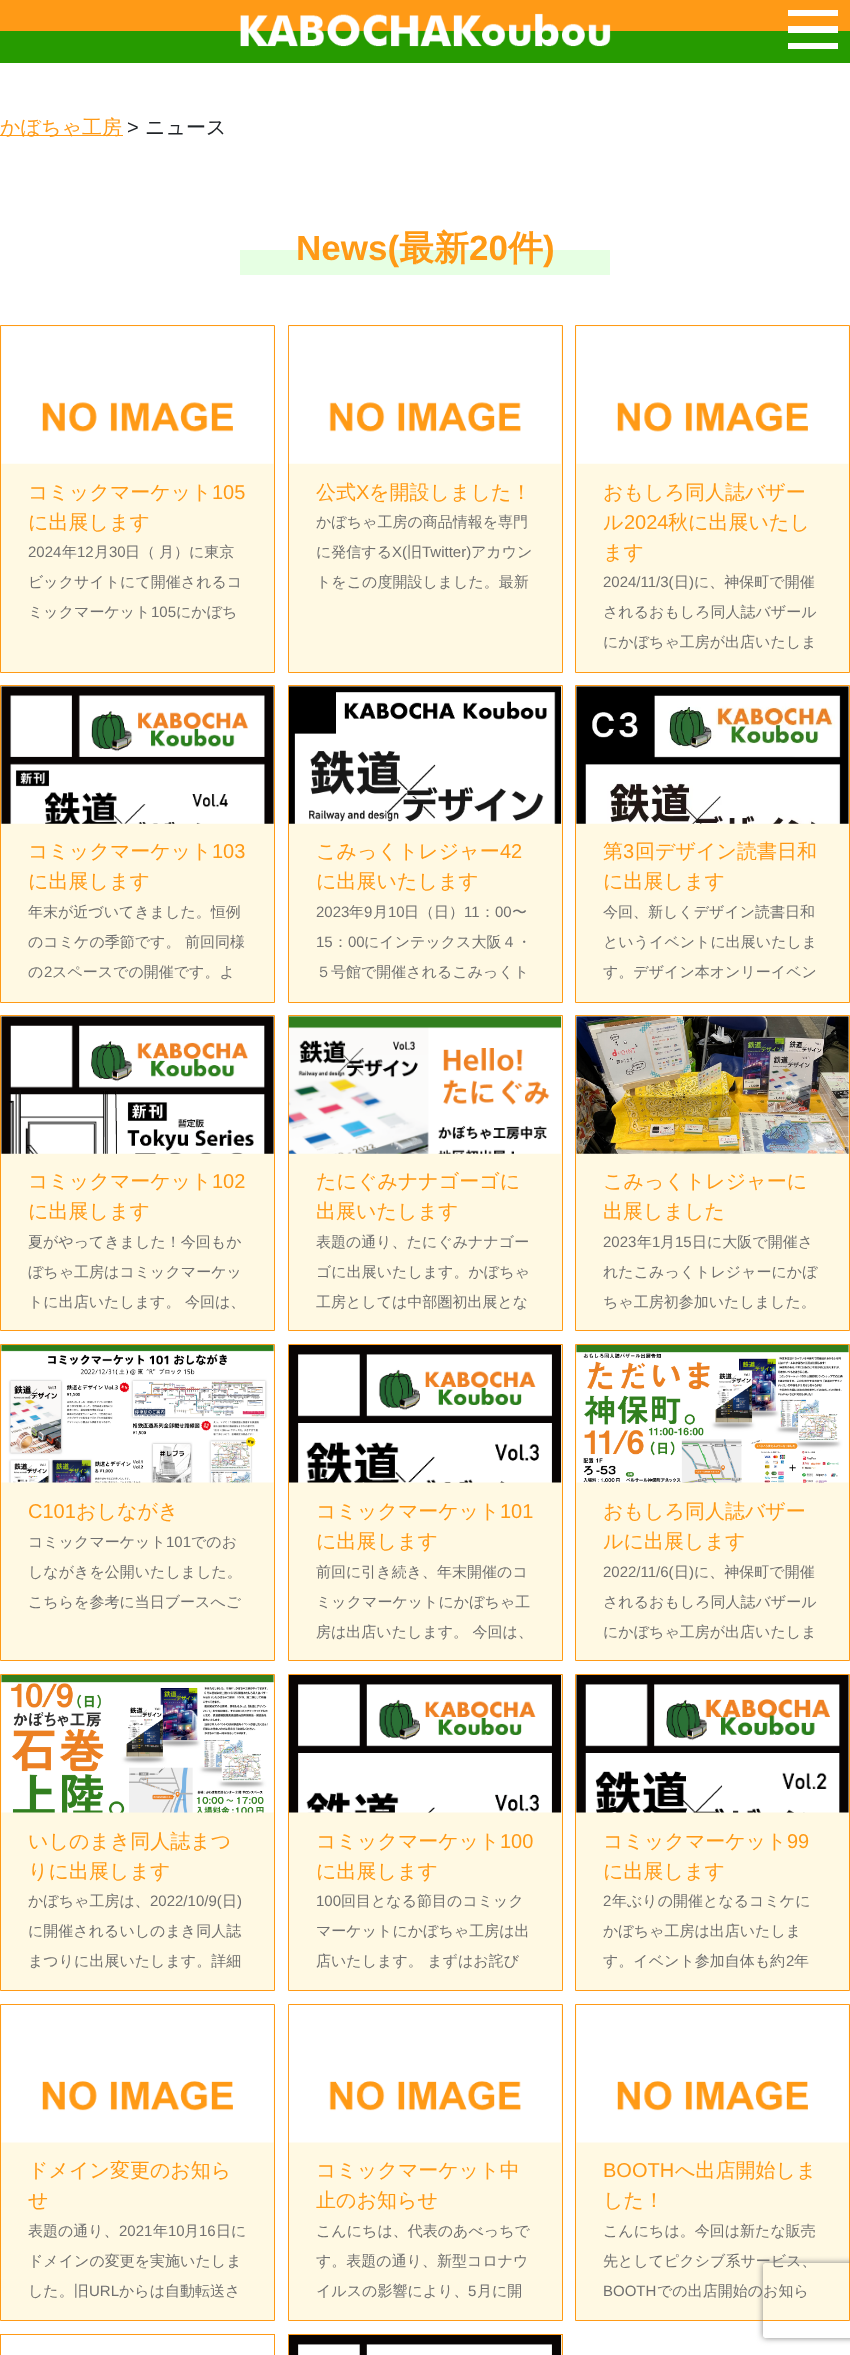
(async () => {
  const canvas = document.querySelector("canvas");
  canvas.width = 850;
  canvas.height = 2355;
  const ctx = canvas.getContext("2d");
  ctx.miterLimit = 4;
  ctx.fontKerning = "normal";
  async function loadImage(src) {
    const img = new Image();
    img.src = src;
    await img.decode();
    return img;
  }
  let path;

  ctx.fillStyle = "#ffffff";
  ctx.fillRect(0, 0, 850, 2355);
  ctx.fillStyle = "#ff9a16";
  ctx.fillRect(0, 0, 850, 31);
  ctx.fillStyle = "#269b00";
  ctx.fillRect(0, 31, 850, 32);
  ctx.drawImage(await loadImage("img/1.png"), 240, 13, 371, 34);
  for (const [x, y, w, h, color] of [
    [788, 10, 50, 6, "#ffffff"],
    [788, 26, 50, 7, "#ffffff"],
    [788, 43, 50, 6, "#ffffff"],
    [0, 135, 123, 1, "#ff9a16"],
    [240, 250, 370, 25, "#e6ffe3"],
  ]) {
    ctx.fillStyle = color;
    ctx.fillRect(x, y, w, h);
  }
  ctx.fillStyle = "#fff9e3";
  ctx.beginPath();
  ctx.rect(0.5, 325.5, 274, 347);
  ctx.fill();
  ctx.strokeStyle = "#ff9a16";
  ctx.stroke();
  ctx.drawImage(await loadImage("img/2.png"), 1, 326, 273, 138);
  ctx.beginPath();
  ctx.rect(288.5, 325.5, 274, 347);
  ctx.fill();
  ctx.stroke();
  ctx.drawImage(await loadImage("img/3.png"), 288, 326, 273, 138);
  ctx.beginPath();
  ctx.rect(575.5, 325.5, 274, 347);
  ctx.fill();
  ctx.stroke();
  ctx.drawImage(await loadImage("img/2.png"), 576, 326, 273, 138);
  ctx.beginPath();
  ctx.rect(0.5, 685.5, 274, 317);
  ctx.fill();
  ctx.stroke();
  ctx.drawImage(await loadImage("img/4.png"), 1, 686, 273, 138);
  ctx.beginPath();
  ctx.rect(288.5, 685.5, 274, 317);
  ctx.fill();
  ctx.stroke();
  ctx.drawImage(await loadImage("img/5.png"), 288, 686, 274, 138);
  ctx.beginPath();
  ctx.rect(575.5, 685.5, 274, 317);
  ctx.fill();
  ctx.stroke();
  ctx.drawImage(await loadImage("img/6.png"), 576, 686, 273, 138);
  ctx.beginPath();
  ctx.rect(0.5, 1015.5, 274, 315);
  ctx.fill();
  ctx.stroke();
  ctx.drawImage(await loadImage("img/7.png"), 1, 1016, 273, 138);
  ctx.beginPath();
  ctx.rect(288.5, 1015.5, 274, 315);
  ctx.fill();
  ctx.stroke();
  ctx.drawImage(await loadImage("img/8.png"), 288, 1016, 274, 138);
  ctx.beginPath();
  ctx.rect(575.5, 1015.5, 274, 315);
  ctx.fill();
  ctx.stroke();
  ctx.drawImage(await loadImage("img/9.png"), 576, 1016, 273, 138);
  ctx.beginPath();
  ctx.rect(0.5, 1344.5, 274, 316);
  ctx.fill();
  ctx.stroke();
  ctx.drawImage(await loadImage("img/10.png"), 1, 1345, 273, 138);
  ctx.beginPath();
  ctx.rect(288.5, 1344.5, 274, 316);
  ctx.fill();
  ctx.stroke();
  ctx.drawImage(await loadImage("img/11.png"), 288, 1345, 274, 138);
  ctx.beginPath();
  ctx.rect(575.5, 1344.5, 274, 316);
  ctx.fill();
  ctx.stroke();
  ctx.drawImage(await loadImage("img/12.png"), 576, 1345, 273, 138);
  ctx.beginPath();
  ctx.rect(0.5, 1674.5, 274, 316);
  ctx.fill();
  ctx.stroke();
  ctx.drawImage(await loadImage("img/13.png"), 1, 1675, 273, 138);
  ctx.beginPath();
  ctx.rect(288.5, 1674.5, 274, 316);
  ctx.fill();
  ctx.stroke();
  ctx.drawImage(await loadImage("img/14.png"), 288, 1675, 274, 138);
  ctx.beginPath();
  ctx.rect(575.5, 1674.5, 274, 316);
  ctx.fill();
  ctx.stroke();
  ctx.drawImage(await loadImage("img/15.png"), 576, 1675, 273, 138);
  ctx.beginPath();
  ctx.rect(0.5, 2004.5, 274, 316);
  ctx.fill();
  ctx.stroke();
  ctx.drawImage(await loadImage("img/16.png"), 1, 2005, 273, 138);
  ctx.beginPath();
  ctx.rect(288.5, 2004.5, 274, 316);
  ctx.fill();
  ctx.stroke();
  ctx.drawImage(await loadImage("img/17.png"), 288, 2005, 273, 138);
  ctx.beginPath();
  ctx.rect(575.5, 2004.5, 274, 316);
  ctx.fill();
  ctx.stroke();
  ctx.drawImage(await loadImage("img/16.png"), 576, 2005, 273, 138);
  ctx.strokeRect(0.5, 2334.5, 274, 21);
  ctx.fillRect(561, 2335, 1, 20);
  ctx.strokeRect(288.5, 2334.5, 274, 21);
  ctx.drawImage(await loadImage("img/18.png"), 288, 2335, 274, 20);
  ctx.save();
  path = new Path2D("M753 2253H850V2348H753ZM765.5 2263H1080.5C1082 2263 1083 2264 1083 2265.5V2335.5C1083 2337 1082 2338 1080.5 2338H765.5C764 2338 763 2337 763 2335.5V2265.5C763 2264 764 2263 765.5 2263Z");
  ctx.clip(path, "evenodd");
  ctx.fillStyle = "#808080";
  ctx.filter = "blur(3px)";
  ctx.beginPath();
  ctx.roundRect(763, 2263, 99, 75, 2.5);
  ctx.fill();
  ctx.filter = "none";
  ctx.restore();
  ctx.font = "500 20px WenQuanYi Zen Hei";
  ctx.fillStyle = "#ff9a16";
  ctx.fillText("かぼちゃ工房", 0, 134);
  ctx.font = "20px Liberation Sans";
  ctx.fillStyle = "#212529";
  ctx.fillText(">", 127, 134);
  ctx.font = "500 20px WenQuanYi Zen Hei";
  ctx.fillText("ニュース", 145, 134);
  ctx.font = "bold 35px Liberation Sans";
  ctx.fillStyle = "#ff9a16";
  ctx.fillText("News(", 296, 260);
  ctx.font = "bold 35px WenQuanYi Zen Hei";
  ctx.fillText("最新", 399, 260);
  ctx.font = "bold 35px Liberation Sans";
  ctx.fillText("20", 469, 260);
  ctx.font = "bold 35px WenQuanYi Zen Hei";
  ctx.fillText("件", 508, 260);
  ctx.font = "bold 35px Liberation Sans";
  ctx.fillText(")", 543, 260);
  ctx.font = "500 20px WenQuanYi Zen Hei";
  ctx.fillText("コミックマーケット", 28, 499);
  ctx.font = "20px Liberation Sans";
  ctx.fillText("105", 212, 499);
  ctx.font = "500 20px WenQuanYi Zen Hei";
  ctx.fillText("に出展します", 28, 529);
  ctx.font = "15px Liberation Sans";
  ctx.fillStyle = "#707070";
  ctx.fillText("2024", 28, 557);
  ctx.font = "500 15px WenQuanYi Zen Hei";
  ctx.fillText("年", 62, 557);
  ctx.font = "15px Liberation Sans";
  ctx.fillText("12", 77, 557);
  ctx.font = "500 15px WenQuanYi Zen Hei";
  ctx.fillText("月", 94, 557);
  ctx.font = "15px Liberation Sans";
  ctx.fillText("30", 109, 557);
  ctx.font = "500 15px WenQuanYi Zen Hei";
  for (const [text, x, y] of [
    ["日（", 125, 557],
    ["月）に東京", 159, 557],
    ["ビックサイトにて開催されるコ", 28, 587],
    ["ミックマーケット", 28, 617],
  ]) {
    ctx.fillText(text, x, y);
  }
  ctx.font = "15px Liberation Sans";
  ctx.fillText("105", 151, 617);
  ctx.font = "500 15px WenQuanYi Zen Hei";
  ctx.fillText("にかぼち", 176, 617);
  ctx.font = "500 20px WenQuanYi Zen Hei";
  ctx.fillStyle = "#ff9a16";
  ctx.fillText("公式", 316, 499);
  ctx.font = "20px Liberation Sans";
  ctx.fillText("X", 356, 499);
  ctx.font = "500 20px WenQuanYi Zen Hei";
  ctx.fillText("を開設しました！", 369, 499);
  ctx.font = "500 15px WenQuanYi Zen Hei";
  ctx.fillStyle = "#707070";
  ctx.fillText("かぼちゃ工房の商品情報を専門", 316, 527);
  ctx.fillText("に発信する", 316, 557);
  ctx.font = "15px Liberation Sans";
  ctx.fillText("X(", 392, 557);
  ctx.font = "500 15px WenQuanYi Zen Hei";
  ctx.fillText("旧", 407, 557);
  ctx.font = "15px Liberation Sans";
  ctx.fillText("Twitter)", 422, 557);
  ctx.font = "500 15px WenQuanYi Zen Hei";
  ctx.fillText("アカウン", 471, 557);
  ctx.fillText("トをこの度開設しました。最新", 316, 587);
  ctx.font = "500 20px WenQuanYi Zen Hei";
  ctx.fillStyle = "#ff9a16";
  ctx.fillText("おもしろ同人誌バザー", 603, 499);
  ctx.fillText("ル", 603, 529);
  ctx.font = "20px Liberation Sans";
  ctx.fillText("2024", 624, 529);
  ctx.font = "500 20px WenQuanYi Zen Hei";
  ctx.fillText("秋に出展いたし", 668, 529);
  ctx.fillText("ます", 603, 559);
  ctx.font = "15px Liberation Sans";
  ctx.fillStyle = "#707070";
  ctx.fillText("2024/11/3(", 603, 587);
  ctx.font = "500 15px WenQuanYi Zen Hei";
  ctx.fillText("日", 674, 587);
  ctx.font = "15px Liberation Sans";
  ctx.fillText(")", 689, 587);
  ctx.font = "500 15px WenQuanYi Zen Hei";
  for (const [text, x, y] of [
    ["に、神保町で開催", 694, 587],
    ["されるおもしろ同人誌バザール", 603, 617],
    ["にかぼちゃ工房が出店いたしま", 603, 647],
  ]) {
    ctx.fillText(text, x, y);
  }
  ctx.font = "500 20px WenQuanYi Zen Hei";
  ctx.fillStyle = "#ff9a16";
  ctx.fillText("コミックマーケット", 28, 858);
  ctx.font = "20px Liberation Sans";
  ctx.fillText("103", 212, 858);
  ctx.font = "500 20px WenQuanYi Zen Hei";
  ctx.fillText("に出展します", 28, 888);
  ctx.font = "500 15px WenQuanYi Zen Hei";
  ctx.fillStyle = "#707070";
  for (const [text, x, y] of [
    ["年末が近づいてきました。恒例", 28, 917],
    ["のコミケの季節です。 前回同様", 28, 947],
    ["の", 28, 977],
  ]) {
    ctx.fillText(text, x, y);
  }
  ctx.font = "15px Liberation Sans";
  ctx.fillText("2", 44, 977);
  ctx.font = "500 15px WenQuanYi Zen Hei";
  ctx.fillText("スペースでの開催です。よ", 52, 977);
  ctx.font = "500 20px WenQuanYi Zen Hei";
  ctx.fillStyle = "#ff9a16";
  ctx.fillText("こみっくトレジャー", 316, 858);
  ctx.font = "20px Liberation Sans";
  ctx.fillText("42", 500, 858);
  ctx.font = "500 20px WenQuanYi Zen Hei";
  ctx.fillText("に出展いたします", 316, 888);
  ctx.font = "15px Liberation Sans";
  ctx.fillStyle = "#707070";
  ctx.fillText("2023", 316, 917);
  ctx.font = "500 15px WenQuanYi Zen Hei";
  ctx.fillText("年", 349, 917);
  ctx.font = "15px Liberation Sans";
  ctx.fillText("9", 364, 917);
  ctx.font = "500 15px WenQuanYi Zen Hei";
  ctx.fillText("月", 373, 917);
  ctx.font = "15px Liberation Sans";
  ctx.fillText("10", 388, 917);
  ctx.font = "500 15px WenQuanYi Zen Hei";
  ctx.fillText("日（日）", 404, 917);
  ctx.font = "15px Liberation Sans";
  ctx.fillText("11", 464, 917);
  ctx.font = "500 15px WenQuanYi Zen Hei";
  ctx.fillText("：", 480, 917);
  ctx.font = "15px Liberation Sans";
  ctx.fillText("00", 495, 917);
  ctx.font = "500 15px WenQuanYi Zen Hei";
  ctx.fillText("〜", 512, 917);
  ctx.font = "15px Liberation Sans";
  ctx.fillText("15", 316, 947);
  ctx.font = "500 15px WenQuanYi Zen Hei";
  ctx.fillText("：", 333, 947);
  ctx.font = "15px Liberation Sans";
  ctx.fillText("00", 348, 947);
  ctx.font = "500 15px WenQuanYi Zen Hei";
  ctx.fillText("にインテックス大阪４・", 364, 947);
  ctx.fillText("５号館で開催されるこみっくト", 316, 977);
  ctx.font = "500 20px WenQuanYi Zen Hei";
  ctx.fillStyle = "#ff9a16";
  ctx.fillText("第", 603, 858);
  ctx.font = "20px Liberation Sans";
  ctx.fillText("3", 623, 858);
  ctx.font = "500 20px WenQuanYi Zen Hei";
  ctx.fillText("回デザイン読書日和", 635, 858);
  ctx.fillText("に出展します", 603, 888);
  ctx.font = "500 15px WenQuanYi Zen Hei";
  ctx.fillStyle = "#707070";
  for (const [text, x, y] of [
    ["今回、新しくデザイン読書日和", 603, 917],
    ["というイベントに出展いたしま", 603, 947],
    ["す。デザイン本オンリーイベン", 603, 977],
  ]) {
    ctx.fillText(text, x, y);
  }
  ctx.font = "500 20px WenQuanYi Zen Hei";
  ctx.fillStyle = "#ff9a16";
  ctx.fillText("コミックマーケット", 28, 1188);
  ctx.font = "20px Liberation Sans";
  ctx.fillText("102", 212, 1188);
  ctx.font = "500 20px WenQuanYi Zen Hei";
  ctx.fillText("に出展します", 28, 1218);
  ctx.font = "500 15px WenQuanYi Zen Hei";
  ctx.fillStyle = "#707070";
  for (const [text, x, y] of [
    ["夏がやってきました！今回もか", 28, 1247],
    ["ぼちゃ工房はコミックマーケッ", 28, 1277],
    ["トに出店いたします。 今回は、", 28, 1307],
  ]) {
    ctx.fillText(text, x, y);
  }
  ctx.font = "500 20px WenQuanYi Zen Hei";
  ctx.fillStyle = "#ff9a16";
  ctx.fillText("たにぐみナナゴーゴに", 316, 1188);
  ctx.fillText("出展いたします", 316, 1218);
  ctx.font = "500 15px WenQuanYi Zen Hei";
  ctx.fillStyle = "#707070";
  for (const [text, x, y] of [
    ["表題の通り、たにぐみナナゴー", 316, 1247],
    ["ゴに出展いたします。かぼちゃ", 316, 1277],
    ["工房としては中部圏初出展とな", 316, 1307],
  ]) {
    ctx.fillText(text, x, y);
  }
  ctx.font = "500 20px WenQuanYi Zen Hei";
  ctx.fillStyle = "#ff9a16";
  ctx.fillText("こみっくトレジャーに", 603, 1188);
  ctx.fillText("出展しました", 603, 1218);
  ctx.font = "15px Liberation Sans";
  ctx.fillStyle = "#707070";
  ctx.fillText("2023", 603, 1247);
  ctx.font = "500 15px WenQuanYi Zen Hei";
  ctx.fillText("年", 637, 1247);
  ctx.font = "15px Liberation Sans";
  ctx.fillText("1", 652, 1247);
  ctx.font = "500 15px WenQuanYi Zen Hei";
  ctx.fillText("月", 660, 1247);
  ctx.font = "15px Liberation Sans";
  ctx.fillText("15", 675, 1247);
  ctx.font = "500 15px WenQuanYi Zen Hei";
  for (const [text, x, y] of [
    ["日に大阪で開催さ", 692, 1247],
    ["れたこみっくトレジャーにかぼ", 603, 1277],
    ["ちゃ工房初参加いたしました。", 603, 1307],
  ]) {
    ctx.fillText(text, x, y);
  }
  ctx.font = "20px Liberation Sans";
  ctx.fillStyle = "#ff9a16";
  ctx.fillText("C101", 28, 1518);
  ctx.font = "500 20px WenQuanYi Zen Hei";
  ctx.fillText("おしながき", 76, 1518);
  ctx.font = "500 15px WenQuanYi Zen Hei";
  ctx.fillStyle = "#707070";
  ctx.fillText("コミックマーケット", 28, 1547);
  ctx.font = "15px Liberation Sans";
  ctx.fillText("101", 166, 1547);
  ctx.font = "500 15px WenQuanYi Zen Hei";
  for (const [text, x, y] of [
    ["でのお", 191, 1547],
    ["しながきを公開いたしました。", 28, 1577],
    ["こちらを参考に当日ブースへご", 28, 1607],
  ]) {
    ctx.fillText(text, x, y);
  }
  ctx.font = "500 20px WenQuanYi Zen Hei";
  ctx.fillStyle = "#ff9a16";
  ctx.fillText("コミックマーケット", 316, 1518);
  ctx.font = "20px Liberation Sans";
  ctx.fillText("101", 500, 1518);
  ctx.font = "500 20px WenQuanYi Zen Hei";
  ctx.fillText("に出展します", 316, 1548);
  ctx.font = "500 15px WenQuanYi Zen Hei";
  ctx.fillStyle = "#707070";
  for (const [text, x, y] of [
    ["前回に引き続き、年末開催のコ", 316, 1577],
    ["ミックマーケットにかぼちゃ工", 316, 1607],
    ["房は出店いたします。 今回は、", 316, 1637],
  ]) {
    ctx.fillText(text, x, y);
  }
  ctx.font = "500 20px WenQuanYi Zen Hei";
  ctx.fillStyle = "#ff9a16";
  ctx.fillText("おもしろ同人誌バザー", 603, 1518);
  ctx.fillText("ルに出展します", 603, 1548);
  ctx.font = "15px Liberation Sans";
  ctx.fillStyle = "#707070";
  ctx.fillText("2022/11/6(", 603, 1577);
  ctx.font = "500 15px WenQuanYi Zen Hei";
  ctx.fillText("日", 674, 1577);
  ctx.font = "15px Liberation Sans";
  ctx.fillText(")", 689, 1577);
  ctx.font = "500 15px WenQuanYi Zen Hei";
  for (const [text, x, y] of [
    ["に、神保町で開催", 694, 1577],
    ["されるおもしろ同人誌バザール", 603, 1607],
    ["にかぼちゃ工房が出店いたしま", 603, 1637],
  ]) {
    ctx.fillText(text, x, y);
  }
  ctx.font = "500 20px WenQuanYi Zen Hei";
  ctx.fillStyle = "#ff9a16";
  ctx.fillText("いしのまき同人誌まつ", 28, 1848);
  ctx.fillText("りに出展します", 28, 1878);
  ctx.font = "500 15px WenQuanYi Zen Hei";
  ctx.fillStyle = "#707070";
  ctx.fillText("かぼちゃ工房は、", 28, 1906);
  ctx.font = "15px Liberation Sans";
  ctx.fillText("2022/10/9(", 150, 1906);
  ctx.font = "500 15px WenQuanYi Zen Hei";
  ctx.fillText("日", 222, 1906);
  ctx.font = "15px Liberation Sans";
  ctx.fillText(")", 237, 1906);
  ctx.font = "500 15px WenQuanYi Zen Hei";
  ctx.fillText("に開催されるいしのまき同人誌", 28, 1936);
  ctx.fillText("まつりに出展いたします。詳細", 28, 1966);
  ctx.font = "500 20px WenQuanYi Zen Hei";
  ctx.fillStyle = "#ff9a16";
  ctx.fillText("コミックマーケット", 316, 1848);
  ctx.font = "20px Liberation Sans";
  ctx.fillText("100", 500, 1848);
  ctx.font = "500 20px WenQuanYi Zen Hei";
  ctx.fillText("に出展します", 316, 1878);
  ctx.font = "15px Liberation Sans";
  ctx.fillStyle = "#707070";
  ctx.fillText("100", 316, 1906);
  ctx.font = "500 15px WenQuanYi Zen Hei";
  for (const [text, x, y] of [
    ["回目となる節目のコミック", 341, 1906],
    ["マーケットにかぼちゃ工房は出", 316, 1936],
    ["店いたします。 まずはお詫び", 316, 1966],
  ]) {
    ctx.fillText(text, x, y);
  }
  ctx.font = "500 20px WenQuanYi Zen Hei";
  ctx.fillStyle = "#ff9a16";
  ctx.fillText("コミックマーケット", 603, 1848);
  ctx.font = "20px Liberation Sans";
  ctx.fillText("99", 787, 1848);
  ctx.font = "500 20px WenQuanYi Zen Hei";
  ctx.fillText("に出展します", 603, 1878);
  ctx.font = "15px Liberation Sans";
  ctx.fillStyle = "#707070";
  ctx.fillText("2", 603, 1906);
  ctx.font = "500 15px WenQuanYi Zen Hei";
  for (const [text, x, y] of [
    ["年ぶりの開催となるコミケに", 612, 1906],
    ["かぼちゃ工房は出店いたしま", 603, 1936],
    ["す。イベント参加自体も約", 603, 1966],
  ]) {
    ctx.fillText(text, x, y);
  }
  ctx.font = "15px Liberation Sans";
  ctx.fillText("2", 786, 1966);
  ctx.font = "500 15px WenQuanYi Zen Hei";
  ctx.fillText("年", 794, 1966);
  ctx.font = "500 20px WenQuanYi Zen Hei";
  ctx.fillStyle = "#ff9a16";
  ctx.fillText("ドメイン変更のお知ら", 28, 2177);
  ctx.fillText("せ", 28, 2207);
  ctx.font = "500 15px WenQuanYi Zen Hei";
  ctx.fillStyle = "#707070";
  ctx.fillText("表題の通り、", 28, 2236);
  ctx.font = "15px Liberation Sans";
  ctx.fillText("2021", 119, 2236);
  ctx.font = "500 15px WenQuanYi Zen Hei";
  ctx.fillText("年", 153, 2236);
  ctx.font = "15px Liberation Sans";
  ctx.fillText("10", 168, 2236);
  ctx.font = "500 15px WenQuanYi Zen Hei";
  ctx.fillText("月", 184, 2236);
  ctx.font = "15px Liberation Sans";
  ctx.fillText("16", 199, 2236);
  ctx.font = "500 15px WenQuanYi Zen Hei";
  for (const [text, x, y] of [
    ["日に", 216, 2236],
    ["ドメインの変更を実施いたしま", 28, 2266],
    ["した。旧", 28, 2296],
  ]) {
    ctx.fillText(text, x, y);
  }
  ctx.font = "15px Liberation Sans";
  ctx.fillText("URL", 89, 2296);
  ctx.font = "500 15px WenQuanYi Zen Hei";
  ctx.fillText("からは自動転送さ", 119, 2296);
  ctx.font = "500 20px WenQuanYi Zen Hei";
  ctx.fillStyle = "#ff9a16";
  ctx.fillText("コミックマーケット中", 316, 2177);
  ctx.fillText("止のお知らせ", 316, 2207);
  ctx.font = "500 15px WenQuanYi Zen Hei";
  ctx.fillStyle = "#707070";
  for (const [text, x, y] of [
    ["こんにちは、代表のあべっちで", 316, 2236],
    ["す。表題の通り、新型コロナウ", 316, 2266],
    ["イルスの影響により、", 316, 2296],
  ]) {
    ctx.fillText(text, x, y);
  }
  ctx.font = "15px Liberation Sans";
  ctx.fillText("5", 468, 2296);
  ctx.font = "500 15px WenQuanYi Zen Hei";
  ctx.fillText("月に開", 477, 2296);
  ctx.font = "20px Liberation Sans";
  ctx.fillStyle = "#ff9a16";
  ctx.fillText("BOOTH", 603, 2177);
  ctx.font = "500 20px WenQuanYi Zen Hei";
  ctx.fillText("へ出店開始しま", 675, 2177);
  ctx.fillText("した！", 603, 2207);
  ctx.font = "500 15px WenQuanYi Zen Hei";
  ctx.fillStyle = "#707070";
  ctx.fillText("こんにちは。今回は新たな販売", 603, 2236);
  ctx.fillText("先としてピクシブ系サービス、", 603, 2266);
  ctx.font = "15px Liberation Sans";
  ctx.fillText("BOOTH", 603, 2296);
  ctx.font = "500 15px WenQuanYi Zen Hei";
  ctx.fillText("での出店開始のお知ら", 657, 2296);
})();
